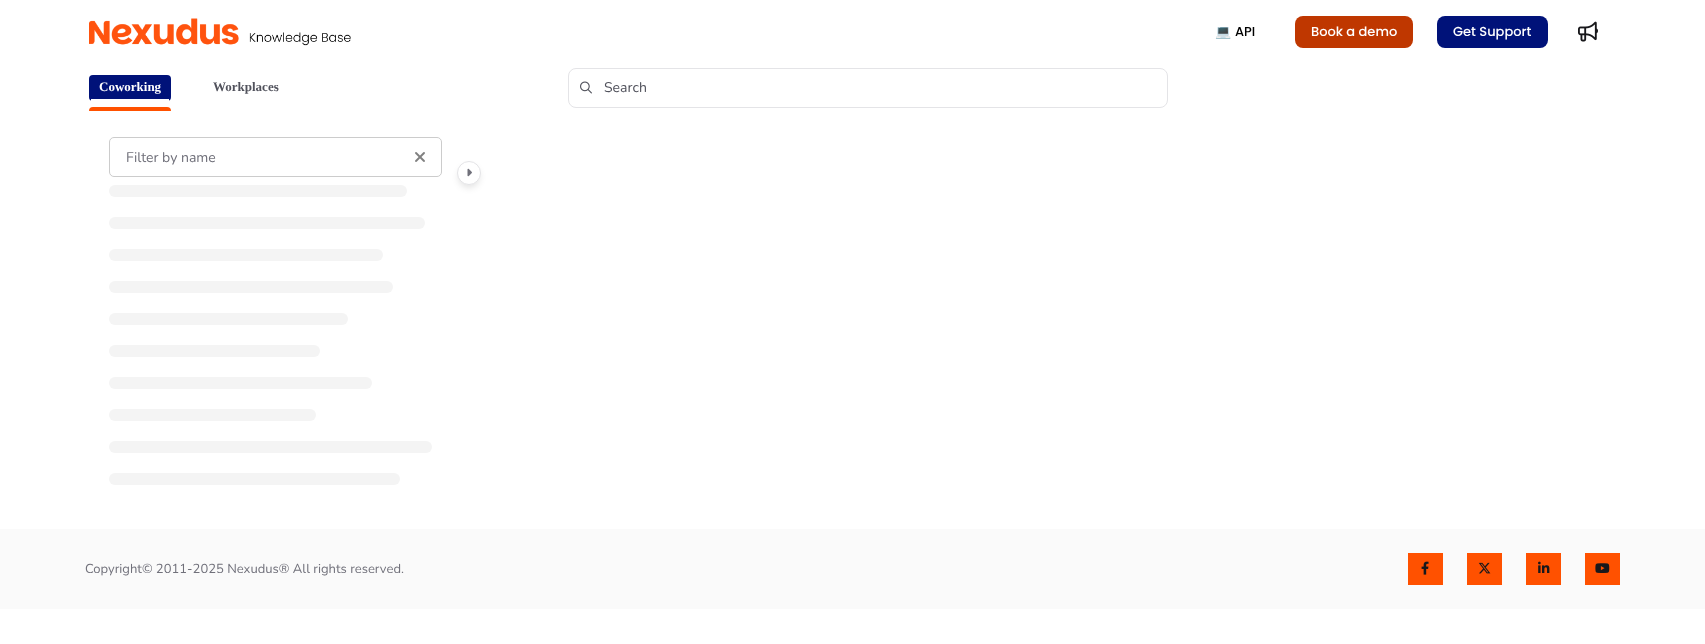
(async () => {
  const canvas = document.querySelector("canvas");
  canvas.width = 1705;
  canvas.height = 644;
  const ctx = canvas.getContext("2d");
  ctx.miterLimit = 4;
  ctx.fontKerning = "normal";
  async function loadImage(src) {
    const img = new Image();
    img.src = src;
    await img.decode();
    return img;
  }

  ctx.fillStyle = "#ffffff";
  ctx.fillRect(0, 0, 1705, 644);
  ctx.drawImage(await loadImage("img/1.png"), 89, 18, 262, 28);
  ctx.fillStyle = "#bf3700";
  ctx.beginPath();
  ctx.roundRect(1295, 16, 118, 32, 8);
  ctx.fill();
  ctx.fillStyle = "#001279";
  ctx.beginPath();
  ctx.roundRect(1437, 16, 111, 32, 8);
  ctx.fill();
  ctx.drawImage(await loadImage("img/2.png"), 1578, 21, 20, 21);
  ctx.beginPath();
  ctx.roundRect(89, 75, 82, 26, 4);
  ctx.fill();
  ctx.fillStyle = "#ffffff";
  ctx.fillRect(91, 99, 78, 2);
  ctx.fillStyle = "#ff5100";
  ctx.beginPath();
  ctx.roundRect(89, 107, 82, 4, [4, 4, 0, 0]);
  ctx.fill();
  ctx.beginPath();
  ctx.roundRect(568.5, 68.5, 599, 39, 7.5);
  ctx.strokeStyle = "#e4e4e7";
  ctx.stroke();
  ctx.drawImage(await loadImage("img/3.png"), 580, 81, 12, 13);
  ctx.beginPath();
  ctx.roundRect(109.5, 137.5, 332, 39, 4.5);
  ctx.strokeStyle = "#cccccc";
  ctx.stroke();
  ctx.drawImage(await loadImage("img/4.png"), 415, 152, 10, 10);
  ctx.fillStyle = "rgba(0, 0, 0, 0.1)";
  ctx.filter = "blur(3px)";
  ctx.beginPath();
  ctx.roundRect(458, 166, 22, 22, 11);
  ctx.fill();
  ctx.filter = "none";
  ctx.fillStyle = "#ffffff";
  ctx.beginPath();
  ctx.arc(469, 173, 11.5, 0, Math.PI * 2);
  ctx.fill();
  ctx.strokeStyle = "#e4e4e7";
  ctx.stroke();
  ctx.drawImage(await loadImage("img/5.png"), 467, 168, 5, 9);
  ctx.fillStyle = "#f4f4f4";
  ctx.beginPath();
  ctx.roundRect(109, 185, 298, 12, 6);
  ctx.fill();
  ctx.beginPath();
  ctx.roundRect(109, 217, 316, 12, 6);
  ctx.fill();
  ctx.beginPath();
  ctx.roundRect(109, 249, 274, 12, 6);
  ctx.fill();
  ctx.beginPath();
  ctx.roundRect(109, 281, 284, 12, 6);
  ctx.fill();
  ctx.beginPath();
  ctx.roundRect(109, 313, 239, 12, 6);
  ctx.fill();
  ctx.beginPath();
  ctx.roundRect(109, 345, 211, 12, 6);
  ctx.fill();
  ctx.beginPath();
  ctx.roundRect(109, 377, 263, 12, 6);
  ctx.fill();
  ctx.beginPath();
  ctx.roundRect(109, 409, 207, 12, 6);
  ctx.fill();
  ctx.beginPath();
  ctx.roundRect(109, 441, 323, 12, 6);
  ctx.fill();
  ctx.beginPath();
  ctx.roundRect(109, 473, 291, 12, 6);
  ctx.fill();
  ctx.fillStyle = "#fafafa";
  ctx.fillRect(0, 529, 1705, 80);
  ctx.fillStyle = "#ff5100";
  ctx.fillRect(1408, 553, 35, 32);
  ctx.drawImage(await loadImage("img/6.png"), 1421, 561, 8, 14);
  ctx.fillRect(1467, 553, 35, 32);
  ctx.drawImage(await loadImage("img/7.png"), 1478, 562, 13, 12);
  ctx.fillRect(1526, 553, 35, 32);
  ctx.drawImage(await loadImage("img/8.png"), 1538, 561, 12, 12);
  ctx.fillRect(1585, 553, 35, 32);
  ctx.drawImage(await loadImage("img/9.png"), 1595, 563, 15, 10);
  ctx.font = "13px Noto Color Emoji";
  ctx.fillStyle = "#000000";
  ctx.fillText("💻", 1215, 36);
  ctx.font = "500 13px Poppins";
  ctx.fillText("API", 1235, 36);
  ctx.fillStyle = "#ffffff";
  ctx.fillText("Book a demo", 1311, 36);
  ctx.fillText("Get Support", 1453, 36);
  ctx.font = "bold 13px Liberation Serif";
  ctx.fillText("Coworking", 99, 91);
  ctx.fillStyle = "#51525c";
  ctx.fillText("Workplaces", 213, 91);
  ctx.font = "14px Nunito";
  ctx.fillText("Search", 604, 92);
  ctx.fillStyle = "#70707a";
  ctx.fillText("Filter by name", 126, 162);
  ctx.font = "13px Nunito";
  ctx.fillText("Copyright© 2011-2025 Nexudus® All rights reserved.", 85, 573);
})();
